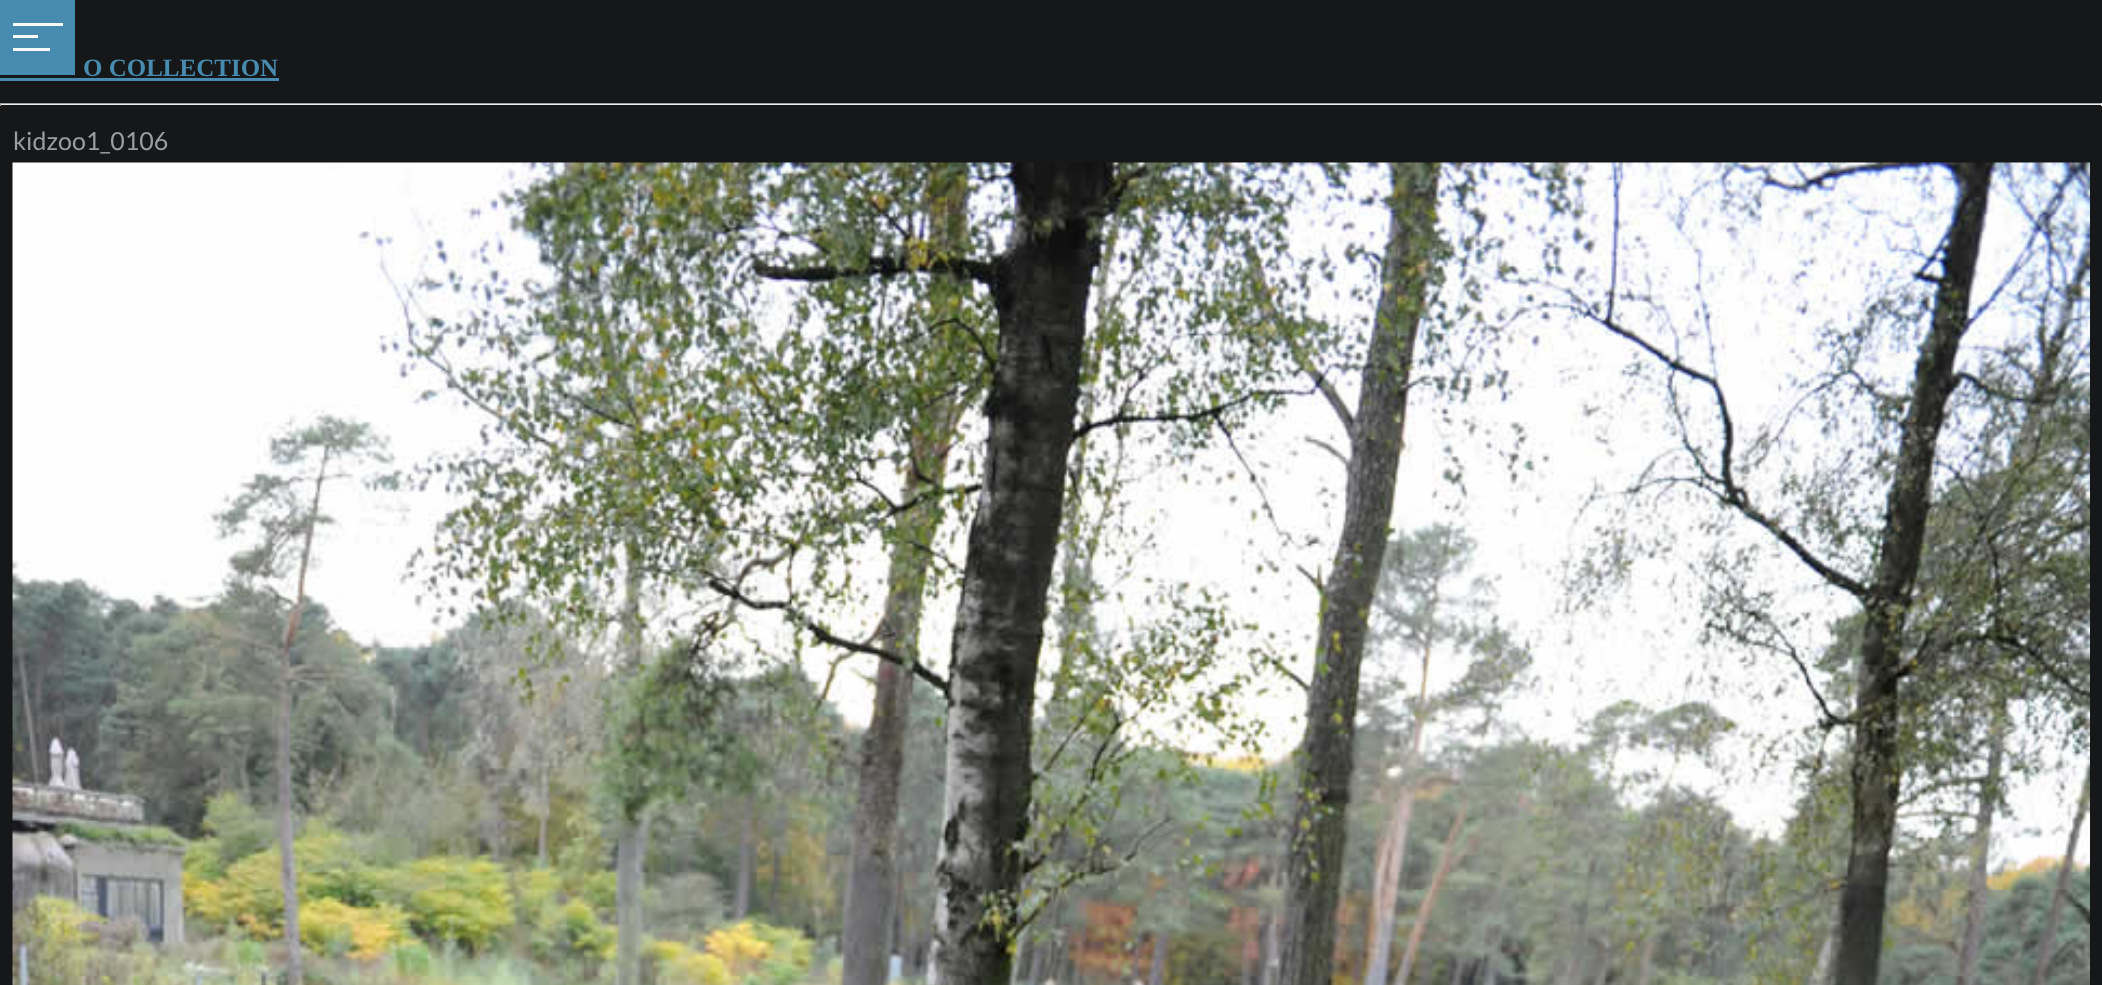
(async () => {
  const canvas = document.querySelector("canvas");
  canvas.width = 2102;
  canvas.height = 985;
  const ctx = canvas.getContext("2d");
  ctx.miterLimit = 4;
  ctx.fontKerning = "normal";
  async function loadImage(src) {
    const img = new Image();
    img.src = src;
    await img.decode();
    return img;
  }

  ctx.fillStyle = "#161718";
  ctx.fillRect(0, 0, 2102, 985);
  for (const [x, y, w, h, color] of [
    [0, 0, 75, 75, "#478cb0"],
    [13, 35, 25, 3, "#fafafa"],
    [13, 23, 50, 3, "#fafafa"],
    [13, 48, 37, 3, "#fafafa"],
    [0, 78, 279, 3, "#478cb0"],
    [0, 103, 2102, 1, "#9f9f9f"],
    [2101, 103, 1, 3, "#eeeeee"],
    [0, 104, 2102, 1, "#eeeeee"],
    [0, 103, 1, 3, "#9f9f9f"],
  ]) {
    ctx.fillStyle = color;
    ctx.fillRect(x, y, w, h);
  }
  ctx.drawImage(await loadImage("img/1.png"), 12, 162, 2078, 823);
  ctx.font = "bold 25px Liberation Serif";
  ctx.fillStyle = "#478cb0";
  ctx.fillText("O COLLECTION", 83, 76);
  ctx.font = "25px Lato";
  ctx.fillStyle = "#999ea3";
  ctx.fillText("kidzoo1_0106", 13, 150);
})();
